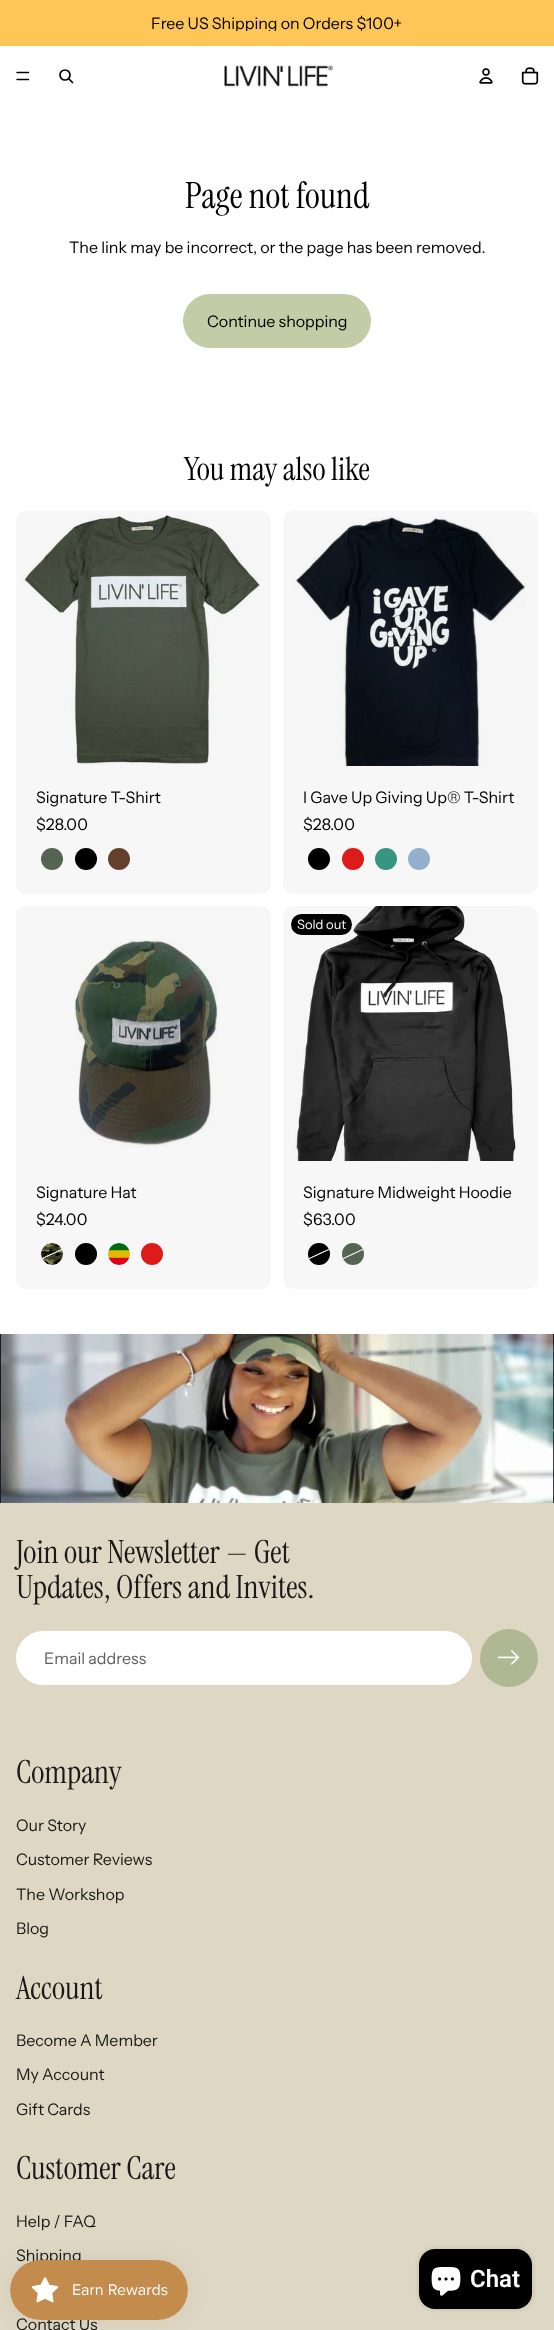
(async () => {
  const canvas = document.querySelector("canvas");
  canvas.width = 554;
  canvas.height = 2330;
  const ctx = canvas.getContext("2d");
  ctx.miterLimit = 4;
  ctx.fontKerning = "normal";
  async function loadImage(src) {
    const img = new Image();
    img.src = src;
    await img.decode();
    return img;
  }
  let path;

  ctx.fillStyle = "#ffffff";
  ctx.fillRect(0, 0, 554, 2330);
  ctx.fillStyle = "#fdc656";
  ctx.fillRect(0, 0, 554, 46);
  path = new Path2D("M17 72.5H28.5M17 79.5H28.5");
  ctx.strokeStyle = "#000000";
  ctx.lineWidth = 1.5;
  ctx.lineCap = "round";
  ctx.stroke(path);
  ctx.beginPath();
  ctx.arc(65, 75, 5, 0, Math.PI * 2);
  ctx.lineWidth = 1.7;
  ctx.stroke();
  path = new Path2D("M69 79L72.5 82.5");
  ctx.lineJoin = "round";
  ctx.stroke(path);
  ctx.drawImage(await loadImage("img/1.png"), 224, 65, 110, 23);
  ctx.drawImage(await loadImage("img/2.png"), 479, 68, 14, 16);
  ctx.drawImage(await loadImage("img/3.png"), 521, 67, 18, 18);
  ctx.fillStyle = "#c3cca6";
  ctx.beginPath();
  ctx.roundRect(183, 294, 188, 54, 27);
  ctx.fill();
  ctx.fillStyle = "#f7f7f7";
  ctx.beginPath();
  ctx.roundRect(16, 511, 255, 383, 10);
  ctx.fill();
  ctx.drawImage(await loadImage("img/4.png"), 23, 515, 237, 250);
  ctx.fillStyle = "#60705e";
  ctx.beginPath();
  ctx.arc(52, 859, 11, 0, Math.PI * 2);
  ctx.fill();
  ctx.fillStyle = "rgba(0, 0, 0, 0.1)";
  path = new Path2D("M52 848C66.5 848 66.5 870 52 870C37.5 870 37.5 848 52 848Z");
  ctx.fill(path);
  ctx.fillStyle = "#000000";
  ctx.beginPath();
  ctx.arc(86, 859, 11, 0, Math.PI * 2);
  ctx.fill();
  ctx.fillStyle = "rgba(0, 0, 0, 0.1)";
  path = new Path2D("M86 848C100.5 848 100.5 870 86 870C71.5 870 71.5 848 86 848Z");
  ctx.fill(path);
  ctx.fillStyle = "#6e4832";
  ctx.beginPath();
  ctx.arc(119, 859, 11, 0, Math.PI * 2);
  ctx.fill();
  ctx.fillStyle = "rgba(0, 0, 0, 0.1)";
  path = new Path2D("M119 848C133.5 848 133.5 870 119 870C104.5 870 104.5 848 119 848Z");
  ctx.fill(path);
  ctx.fillStyle = "#f7f7f7";
  ctx.beginPath();
  ctx.roundRect(283, 511, 255, 383, 10);
  ctx.fill();
  ctx.drawImage(await loadImage("img/5.png"), 293, 516, 233, 250);
  ctx.fillStyle = "#000000";
  ctx.beginPath();
  ctx.arc(319, 859, 11, 0, Math.PI * 2);
  ctx.fill();
  ctx.fillStyle = "rgba(0, 0, 0, 0.1)";
  path = new Path2D("M319 848C333.5 848 333.5 870 319 870C304.5 870 304.5 848 319 848Z");
  ctx.fill(path);
  ctx.fillStyle = "#f61f1f";
  ctx.beginPath();
  ctx.arc(353, 859, 11, 0, Math.PI * 2);
  ctx.fill();
  ctx.fillStyle = "rgba(0, 0, 0, 0.1)";
  path = new Path2D("M353 848C367.5 848 367.5 870 353 870C338.5 870 338.5 848 353 848Z");
  ctx.fill(path);
  ctx.fillStyle = "#3da791";
  ctx.beginPath();
  ctx.arc(386, 859, 11, 0, Math.PI * 2);
  ctx.fill();
  ctx.fillStyle = "rgba(0, 0, 0, 0.1)";
  path = new Path2D("M386 848C400.5 848 400.5 870 386 870C371.5 870 371.5 848 386 848Z");
  ctx.fill(path);
  ctx.fillStyle = "#a4c4e4";
  ctx.beginPath();
  ctx.arc(419, 859, 11, 0, Math.PI * 2);
  ctx.fill();
  ctx.fillStyle = "rgba(0, 0, 0, 0.1)";
  path = new Path2D("M419 848C433.5 848 433.5 870 419 870C404.5 870 404.5 848 419 848Z");
  ctx.fill(path);
  ctx.fillStyle = "#f7f7f7";
  ctx.beginPath();
  ctx.roundRect(16, 906, 255, 383, 10);
  ctx.fill();
  ctx.drawImage(await loadImage("img/6.png"), 74, 939, 145, 209);
  ctx.fillStyle = "#ffffff";
  ctx.beginPath();
  ctx.arc(52, 1254, 11, 0, Math.PI * 2);
  ctx.fill();
  ctx.drawImage(await loadImage("img/7.png"), 41, 1243, 22, 22);
  ctx.fillStyle = "rgba(0, 0, 0, 0.1)";
  path = new Path2D("M52 1243C66.5 1243 66.5 1265 52 1265C37.5 1265 37.5 1243 52 1243Z");
  ctx.fill(path);
  ctx.save();
  ctx.beginPath();
  ctx.roundRect(41, 1243, 22, 22, 11);
  ctx.clip();
  path = new Path2D("M73.5 1244L30.5 1264M73.5 1244L30.5 1264");
  ctx.strokeStyle = "#e6e6e6";
  ctx.lineWidth = 1;
  ctx.lineCap = "butt";
  ctx.lineJoin = "miter";
  ctx.stroke(path);
  ctx.restore();
  ctx.fillStyle = "#000000";
  ctx.beginPath();
  ctx.arc(86, 1254, 11, 0, Math.PI * 2);
  ctx.fill();
  ctx.fillStyle = "rgba(0, 0, 0, 0.1)";
  path = new Path2D("M86 1243C100.5 1243 100.5 1265 86 1265C71.5 1265 71.5 1243 86 1243Z");
  ctx.fill(path);
  ctx.fillStyle = "#ffffff";
  ctx.beginPath();
  ctx.arc(119, 1254, 11, 0, Math.PI * 2);
  ctx.fill();
  ctx.drawImage(await loadImage("img/8.png"), 108, 1243, 22, 22);
  ctx.fillStyle = "rgba(0, 0, 0, 0.1)";
  path = new Path2D("M119 1243C133.5 1243 133.5 1265 119 1265C104.5 1265 104.5 1243 119 1243Z");
  ctx.fill(path);
  ctx.fillStyle = "#f61f1f";
  ctx.beginPath();
  ctx.arc(152, 1254, 11, 0, Math.PI * 2);
  ctx.fill();
  ctx.fillStyle = "rgba(0, 0, 0, 0.1)";
  path = new Path2D("M152 1243C166.5 1243 166.5 1265 152 1265C137.5 1265 137.5 1243 152 1243Z");
  ctx.fill(path);
  ctx.fillStyle = "#f7f7f7";
  ctx.beginPath();
  ctx.roundRect(283, 906, 255, 383, 10);
  ctx.fill();
  ctx.drawImage(await loadImage("img/9.png"), 295, 906, 223, 255);
  ctx.fillStyle = "#000000";
  ctx.beginPath();
  ctx.roundRect(291, 914, 61, 21, 10.5);
  ctx.fill();
  ctx.beginPath();
  ctx.arc(319, 1254, 11, 0, Math.PI * 2);
  ctx.fill();
  ctx.fillStyle = "rgba(0, 0, 0, 0.1)";
  path = new Path2D("M319 1243C333.5 1243 333.5 1265 319 1265C304.5 1265 304.5 1243 319 1243Z");
  ctx.fill(path);
  ctx.save();
  ctx.beginPath();
  ctx.roundRect(308, 1243, 22, 22, 11);
  ctx.clip();
  path = new Path2D("M340.5 1244L297.5 1264M340.5 1244L297.5 1264");
  ctx.strokeStyle = "#e6e6e6";
  ctx.lineWidth = 1;
  ctx.lineCap = "butt";
  ctx.lineJoin = "miter";
  ctx.stroke(path);
  ctx.restore();
  ctx.fillStyle = "#60705e";
  ctx.beginPath();
  ctx.arc(353, 1254, 11, 0, Math.PI * 2);
  ctx.fill();
  ctx.fillStyle = "rgba(0, 0, 0, 0.1)";
  path = new Path2D("M353 1243C367.5 1243 367.5 1265 353 1265C338.5 1265 338.5 1243 353 1243Z");
  ctx.fill(path);
  ctx.save();
  ctx.beginPath();
  ctx.roundRect(342, 1243, 22, 22, 11);
  ctx.clip();
  path = new Path2D("M374.5 1244L331.5 1264M374.5 1244L331.5 1264");
  ctx.strokeStyle = "#e6e6e6";
  ctx.lineWidth = 1;
  ctx.lineCap = "butt";
  ctx.lineJoin = "miter";
  ctx.stroke(path);
  ctx.restore();
  ctx.fillStyle = "#ded7c3";
  ctx.fillRect(0, 1503, 554, 827);
  ctx.drawImage(await loadImage("img/10.png"), 0, 1334, 554, 169);
  ctx.fillStyle = "#ffffff";
  ctx.beginPath();
  ctx.roundRect(16, 1631, 456, 54, 27);
  ctx.fill();
  ctx.fillStyle = "#aeb994";
  ctx.beginPath();
  ctx.arc(509, 1658, 29, 0, Math.PI * 2);
  ctx.fill();
  ctx.drawImage(await loadImage("img/11.png"), 497, 1650, 23, 15);
  ctx.fillStyle = "rgba(0, 0, 0, 0.05)";
  ctx.filter = "blur(12.5px)";
  ctx.beginPath();
  ctx.roundRect(10, 2260, 178, 60, 30);
  ctx.fill();
  ctx.filter = "none";
  ctx.fillStyle = "rgba(0, 0, 0, 0.15)";
  ctx.filter = "blur(2.5px)";
  ctx.beginPath();
  ctx.roundRect(419, 2249, 113, 60, 16);
  ctx.fill();
  ctx.filter = "none";
  ctx.fillStyle = "#000000";
  ctx.beginPath();
  ctx.roundRect(419, 2249, 113, 60, 16);
  ctx.fill();
  ctx.drawImage(await loadImage("img/13.png"), 431, 2267, 30, 29);
  ctx.save();
  ctx.beginPath();
  ctx.rect(44, 15, 466, 16);
  ctx.clip();
  ctx.font = "16px Instrument Sans";
  ctx.fillText("Free US Shipping on Orders $100+", 151, 29);
  ctx.restore();
  ctx.font = "36px Instrument Serif";
  ctx.fillText("Page not found", 185, 208);
  ctx.font = "16px Instrument Sans";
  ctx.fillText("The link may be incorrect, or the page has been removed.", 69, 253);
  ctx.fillText("Continue shopping", 207, 327);
  ctx.font = "32px Instrument Serif";
  ctx.fillText("You may also like", 184, 480);
  ctx.font = "16px Instrument Sans";
  for (const [text, x, y] of [
    ["Signature T-Shirt", 36, 803],
    ["$28.00", 36, 830],
    ["I Gave Up Giving Up® T-Shirt", 303, 803],
    ["$28.00", 303, 830],
    ["Signature Hat", 36, 1198],
    ["$24.00", 36, 1225],
  ]) {
    ctx.fillText(text, x, y);
  }
  ctx.font = "13px Instrument Sans";
  ctx.fillStyle = "#ffffff";
  ctx.fillText("Sold out", 297, 929);
  ctx.font = "16px Instrument Sans";
  ctx.fillStyle = "#000000";
  ctx.fillText("Signature Midweight Hoodie", 303, 1198);
  ctx.fillText("$63.00", 303, 1225);
  ctx.font = "32px Instrument Serif";
  ctx.fillStyle = "#191919";
  ctx.fillText("Join our Newsletter — Get", 16, 1563);
  ctx.fillText("Updates, Offers and Invites.", 16, 1598);
  ctx.font = "16px Instrument Sans";
  ctx.fillStyle = "#5e5e5e";
  ctx.fillText("Email address", 44, 1664);
  ctx.font = "32px Instrument Serif";
  ctx.fillStyle = "#191919";
  ctx.fillText("Company", 16, 1783);
  ctx.font = "16px Instrument Sans";
  for (const [text, x, y] of [
    ["Our Story", 16, 1831],
    ["Customer Reviews", 16, 1865],
    ["The Workshop", 16, 1900],
    ["Blog", 16, 1934],
  ]) {
    ctx.fillText(text, x, y);
  }
  ctx.font = "32px Instrument Serif";
  ctx.fillText("Account", 16, 1999);
  ctx.font = "16px Instrument Sans";
  for (const [text, x, y] of [
    ["Become A Member", 16, 2046],
    ["My Account", 16, 2080],
    ["Gift Cards", 16, 2115],
  ]) {
    ctx.fillText(text, x, y);
  }
  ctx.font = "32px Instrument Serif";
  ctx.fillText("Customer Care", 16, 2179);
  ctx.font = "16px Instrument Sans";
  for (const [text, x, y] of [
    ["Help / FAQ", 16, 2227],
    ["Shipping", 16, 2261],
    ["Contact Us", 16, 2330],
  ]) {
    ctx.fillText(text, x, y);
  }
  ctx.drawImage(await loadImage("img/12.png"), 10, 2260, 178, 60);
  ctx.font = "600 24px Roboto";
  ctx.fillStyle = "#ffffff";
  ctx.fillText("Chat", 470, 2287);
})();
